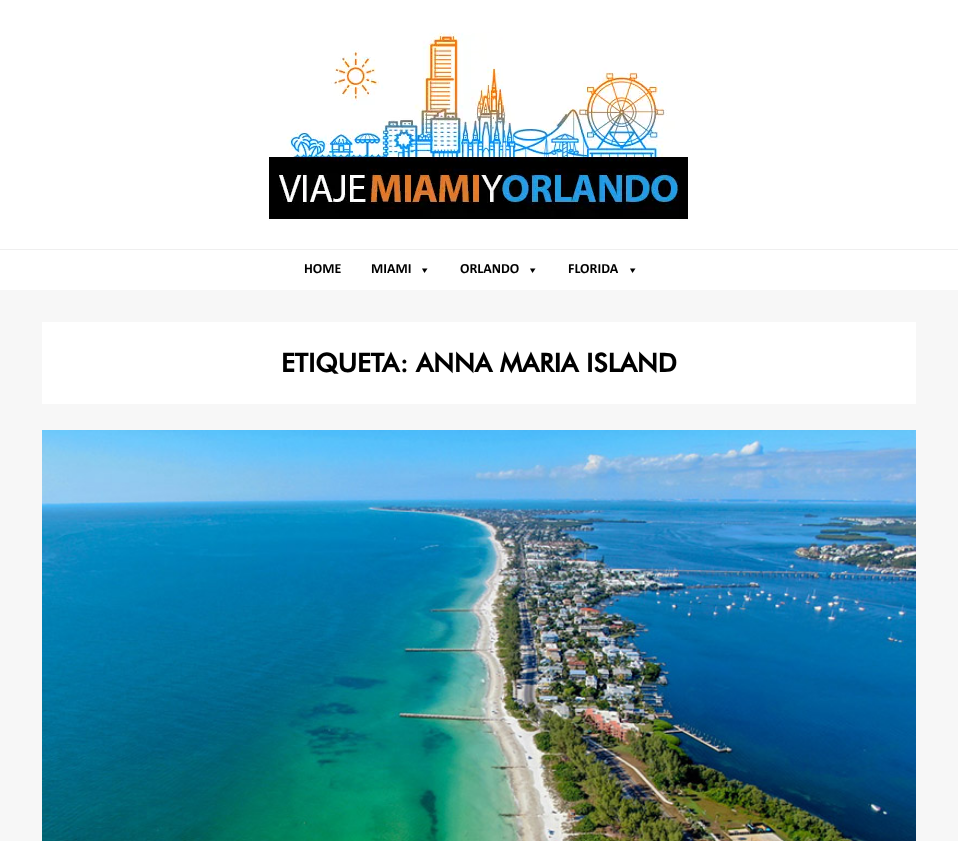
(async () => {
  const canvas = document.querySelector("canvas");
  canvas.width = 958;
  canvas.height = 841;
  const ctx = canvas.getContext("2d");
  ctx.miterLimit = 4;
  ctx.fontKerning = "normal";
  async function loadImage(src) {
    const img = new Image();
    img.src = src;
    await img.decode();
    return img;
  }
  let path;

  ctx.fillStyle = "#ffffff";
  ctx.fillRect(0, 0, 958, 841);
  ctx.drawImage(await loadImage("img/1.png"), 269, 32, 419, 189);
  ctx.fillStyle = "#efefef";
  ctx.fillRect(0, 249, 958, 1);
  ctx.fillStyle = "#000000";
  path = new Path2D("M427.5 268.5L424.5 273L422 268.5Z");
  ctx.fill(path);
  path = new Path2D("M535.5 268.5L532.5 273L530 268.5Z");
  ctx.fill(path);
  path = new Path2D("M635.5 268.5L632.5 273L630 268.5Z");
  ctx.fill(path);
  ctx.fillStyle = "#f7f7f7";
  ctx.fillRect(0, 290, 958, 551);
  ctx.fillStyle = "#ffffff";
  ctx.fillRect(42, 322, 874, 82);
  ctx.drawImage(await loadImage("img/2.png"), 42, 430, 874, 411);
  ctx.font = "bold 14px Calibri";
  ctx.fillStyle = "#000000";
  for (const [text, x, y] of [
    ["HOME", 304, 273],
    ["MIAMI", 371, 273],
    ["ORLANDO", 460, 273],
    ["FLORIDA", 568, 273],
  ]) {
    ctx.fillText(text, x, y);
  }
  ctx.font = "bold 25.9px Futura";
  ctx.fillText("ETIQUETA: ANNA MARIA ISLAND", 281, 372);
})();
